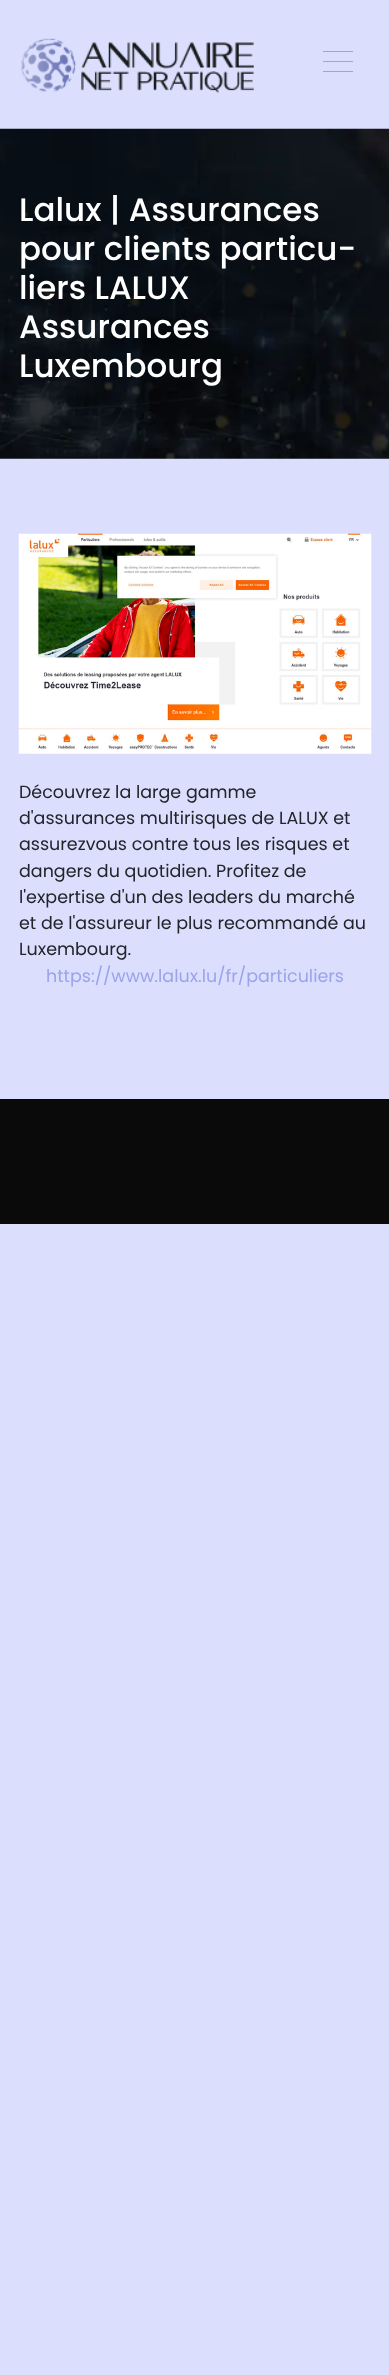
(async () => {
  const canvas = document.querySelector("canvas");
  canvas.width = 389;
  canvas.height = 2375;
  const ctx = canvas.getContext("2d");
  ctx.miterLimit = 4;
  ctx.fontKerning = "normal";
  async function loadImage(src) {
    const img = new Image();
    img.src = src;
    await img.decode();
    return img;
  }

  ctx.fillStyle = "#dbdffd";
  ctx.fillRect(0, 0, 389, 2375);
  ctx.drawImage(await loadImage("img/1.png"), 21, 38, 233, 55);
  for (const [x, y, w, h, color] of [
    [323, 51, 30, 1, "#9ba3eb"],
    [323, 61, 30, 1, "#9ba3eb"],
    [323, 71, 30, 1, "#9ba3eb"],
  ]) {
    ctx.fillStyle = color;
    ctx.fillRect(x, y, w, h);
  }
  ctx.drawImage(await loadImage("img/2.png"), 0, 128, 389, 331);
  ctx.drawImage(await loadImage("img/3.png"), 18, 533, 354, 221);
  ctx.fillStyle = "#0a0a0a";
  ctx.fillRect(0, 1099, 389, 125);
  ctx.font = "500 32.5px Poppins";
  ctx.fillStyle = "#ffffff";
  for (const [text, x, y] of [
    ["Lalux | Assurances", 19, 221],
    ["pour clients particu-", 19, 260],
    ["liers LALUX", 19, 299],
    ["Assurances", 19, 338],
    ["Luxembourg", 19, 377],
  ]) {
    ctx.fillText(text, x, y);
  }
  ctx.font = "17.5px Poppins";
  ctx.fillStyle = "#212529";
  for (const [text, x, y] of [
    ["Découvrez la large gamme", 19, 798],
    ["d'assurances multirisques de LALUX et", 19, 824],
    ["assurezvous contre tous les risques et", 19, 850],
    ["dangers du quotidien. Profitez de", 19, 877],
    ["l'expertise d'un des leaders du marché", 19, 903],
    ["et de l'assureur le plus recommandé au", 19, 929],
    ["Luxembourg.", 19, 955],
  ]) {
    ctx.fillText(text, x, y);
  }
  ctx.fillStyle = "#9ba3eb";
  ctx.fillText("https://www.lalux.lu/fr/particuliers", 46, 982);
})();
